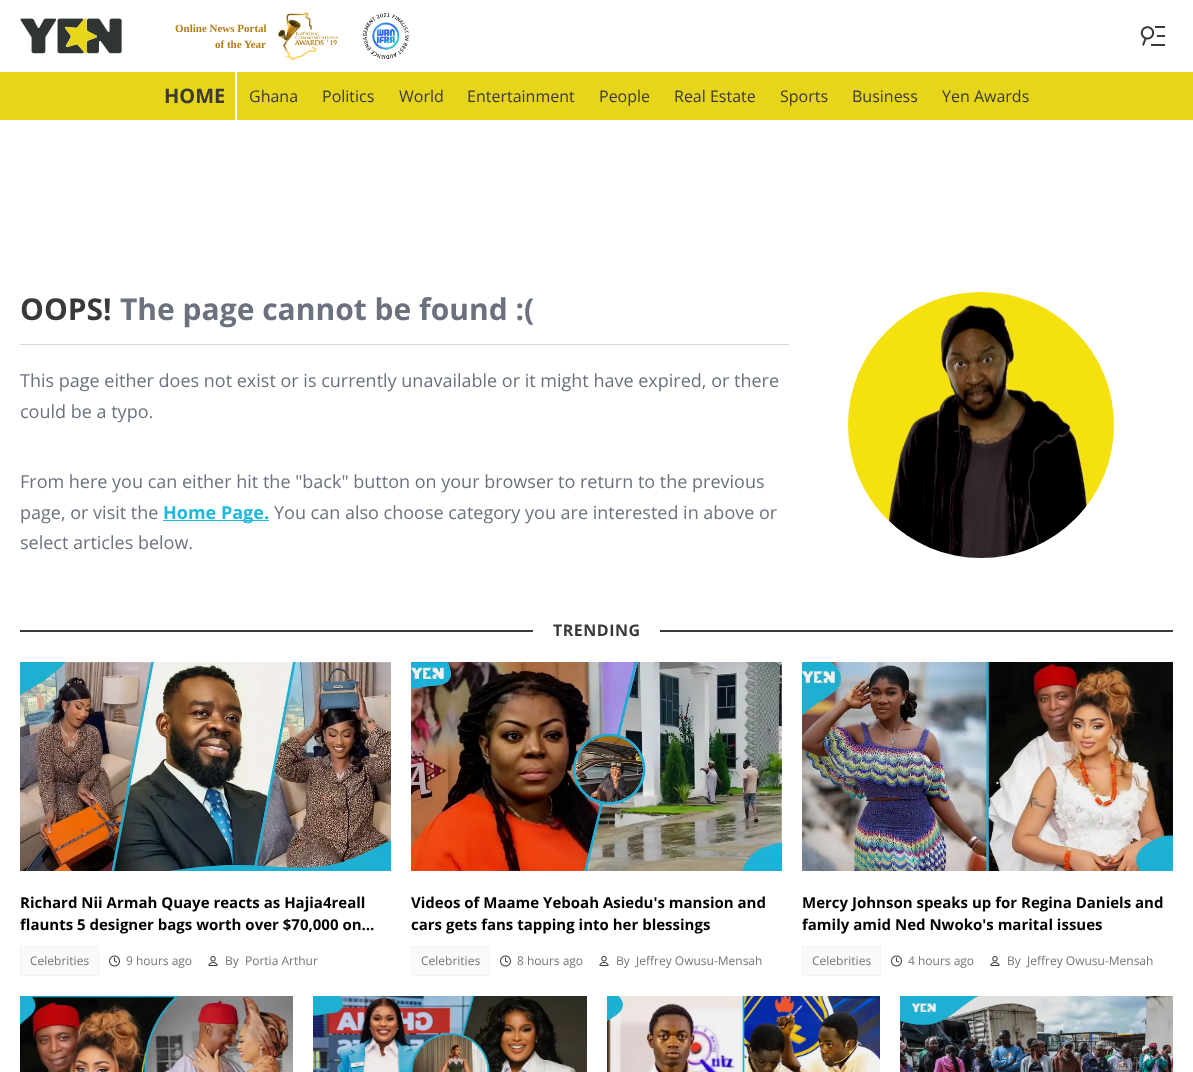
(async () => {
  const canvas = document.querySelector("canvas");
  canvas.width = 1193;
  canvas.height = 1072;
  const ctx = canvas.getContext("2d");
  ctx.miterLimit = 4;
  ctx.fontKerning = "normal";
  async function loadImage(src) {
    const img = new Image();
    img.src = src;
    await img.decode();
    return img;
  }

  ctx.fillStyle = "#ffffff";
  ctx.fillRect(0, 0, 1193, 1072);
  ctx.drawImage(await loadImage("img/1.png"), 20, 18, 102, 36);
  ctx.drawImage(await loadImage("img/2.png"), 278, 12, 60, 48);
  ctx.drawImage(await loadImage("img/3.png"), 362, 13, 47, 47);
  ctx.drawImage(await loadImage("img/4.png"), 1140, 26, 25, 20);
  for (const [x, y, w, h, color] of [
    [0, 72, 1193, 48, "#e7d51b"],
    [235, 72, 2, 48, "#ffffff"],
    [20, 344, 769, 1, "#d8d8d8"],
    [163, 520, 106, 1, "#20b9de"],
  ]) {
    ctx.fillStyle = color;
    ctx.fillRect(x, y, w, h);
  }
  ctx.drawImage(await loadImage("img/5.png"), 848, 292, 266, 266);
  ctx.fillStyle = "#3a3938";
  ctx.fillRect(20, 630, 1153, 2);
  ctx.fillStyle = "#ffffff";
  ctx.fillRect(533, 630, 127, 2);
  ctx.drawImage(await loadImage("img/6.png"), 20, 662, 371, 209);
  ctx.fillStyle = "#fafafa";
  ctx.beginPath();
  ctx.rect(20.5, 946.5, 78, 29);
  ctx.fill();
  ctx.strokeStyle = "#f3f3f3";
  ctx.stroke();
  ctx.drawImage(await loadImage("img/7.png"), 109, 955, 11, 12);
  ctx.drawImage(await loadImage("img/8.png"), 208, 956, 10, 10);
  ctx.drawImage(await loadImage("img/9.png"), 411, 662, 371, 209);
  ctx.beginPath();
  ctx.rect(411.5, 946.5, 78, 29);
  ctx.fill();
  ctx.stroke();
  ctx.drawImage(await loadImage("img/7.png"), 500, 955, 11, 12);
  ctx.drawImage(await loadImage("img/8.png"), 599, 956, 10, 10);
  ctx.drawImage(await loadImage("img/10.png"), 802, 662, 371, 209);
  ctx.beginPath();
  ctx.rect(802.5, 946.5, 78, 29);
  ctx.fill();
  ctx.stroke();
  ctx.drawImage(await loadImage("img/7.png"), 891, 955, 11, 12);
  ctx.drawImage(await loadImage("img/8.png"), 990, 956, 10, 10);
  ctx.drawImage(await loadImage("img/11.png"), 20, 996, 273, 76);
  ctx.drawImage(await loadImage("img/12.png"), 313, 996, 274, 76);
  ctx.drawImage(await loadImage("img/13.png"), 607, 996, 273, 76);
  ctx.drawImage(await loadImage("img/14.png"), 900, 996, 273, 76);
  ctx.font = "bold 11px Liberation Serif";
  ctx.fillStyle = "#b57e1c";
  ctx.fillText("Online News Portal", 175, 32);
  ctx.fillText("of the Year", 215, 48);
  ctx.font = "bold 20px Open Sans";
  ctx.fillStyle = "#3a3938";
  ctx.fillText("HOME", 164, 103);
  ctx.font = "16px Open Sans";
  for (const [text, x, y] of [
    ["Ghana", 249, 102],
    ["Politics", 322, 102],
    ["World", 399, 102],
    ["Entertainment", 467, 102],
    ["People", 599, 102],
    ["Real Estate", 674, 102],
    ["Sports", 780, 102],
    ["Business", 852, 102],
    ["Yen Awards", 942, 102],
  ]) {
    ctx.fillText(text, x, y);
  }
  ctx.font = "bold 30px Open Sans";
  ctx.fillText("OOPS!", 20, 320);
  ctx.fillStyle = "#6b727e";
  ctx.fillText("The page cannot be found :(", 120, 320);
  ctx.font = "18px Open Sans";
  for (const [text, x, y] of [
    ["This page either does not exist or is currently unavailable or it might have expired, or there", 20, 387],
    ["could be a typo.", 20, 418],
    ["From here you can either hit the \"back\" button on your browser to return to the previous", 20, 488],
    ["page, or visit the", 20, 519],
  ]) {
    ctx.fillText(text, x, y);
  }
  ctx.font = "bold 18px Open Sans";
  ctx.fillStyle = "#20b9de";
  ctx.fillText("Home Page.", 163, 519);
  ctx.font = "18px Open Sans";
  ctx.fillStyle = "#6b727e";
  ctx.fillText("You can also choose category you are interested in above or", 274, 519);
  ctx.fillText("select articles below.", 20, 549);
  ctx.letterSpacing = "0.5px";
  ctx.font = "bold 16px Open Sans";
  ctx.fillStyle = "#3a3938";
  ctx.fillText("TRENDING", 553, 636);
  ctx.letterSpacing = "0px";
  ctx.font = "bold 15px Open Sans";
  ctx.fillStyle = "#010101";
  ctx.fillText("Richard Nii Armah Quaye reacts as Hajia4reall", 20, 908);
  ctx.fillText("flaunts 5 designer bags worth over $70,000 on…", 20, 930);
  ctx.font = "12px Open Sans";
  ctx.fillStyle = "#757575";
  for (const [text, x, y] of [
    ["Celebrities", 30, 965],
    ["9 hours ago", 126, 965],
    ["By", 225, 965],
    ["Portia Arthur", 245, 965],
  ]) {
    ctx.fillText(text, x, y);
  }
  ctx.font = "bold 15px Open Sans";
  ctx.fillStyle = "#010101";
  ctx.fillText("Videos of Maame Yeboah Asiedu's mansion and", 411, 908);
  ctx.fillText("cars gets fans tapping into her blessings", 411, 930);
  ctx.font = "12px Open Sans";
  ctx.fillStyle = "#757575";
  for (const [text, x, y] of [
    ["Celebrities", 421, 965],
    ["8 hours ago", 517, 965],
    ["By", 616, 965],
    ["Jeffrey Owusu-Mensah", 636, 965],
  ]) {
    ctx.fillText(text, x, y);
  }
  ctx.font = "bold 15px Open Sans";
  ctx.fillStyle = "#010101";
  ctx.fillText("Mercy Johnson speaks up for Regina Daniels and", 802, 908);
  ctx.fillText("family amid Ned Nwoko's marital issues", 802, 930);
  ctx.font = "12px Open Sans";
  ctx.fillStyle = "#757575";
  for (const [text, x, y] of [
    ["Celebrities", 812, 965],
    ["4 hours ago", 908, 965],
    ["By", 1007, 965],
    ["Jeffrey Owusu-Mensah", 1027, 965],
  ]) {
    ctx.fillText(text, x, y);
  }
})();
